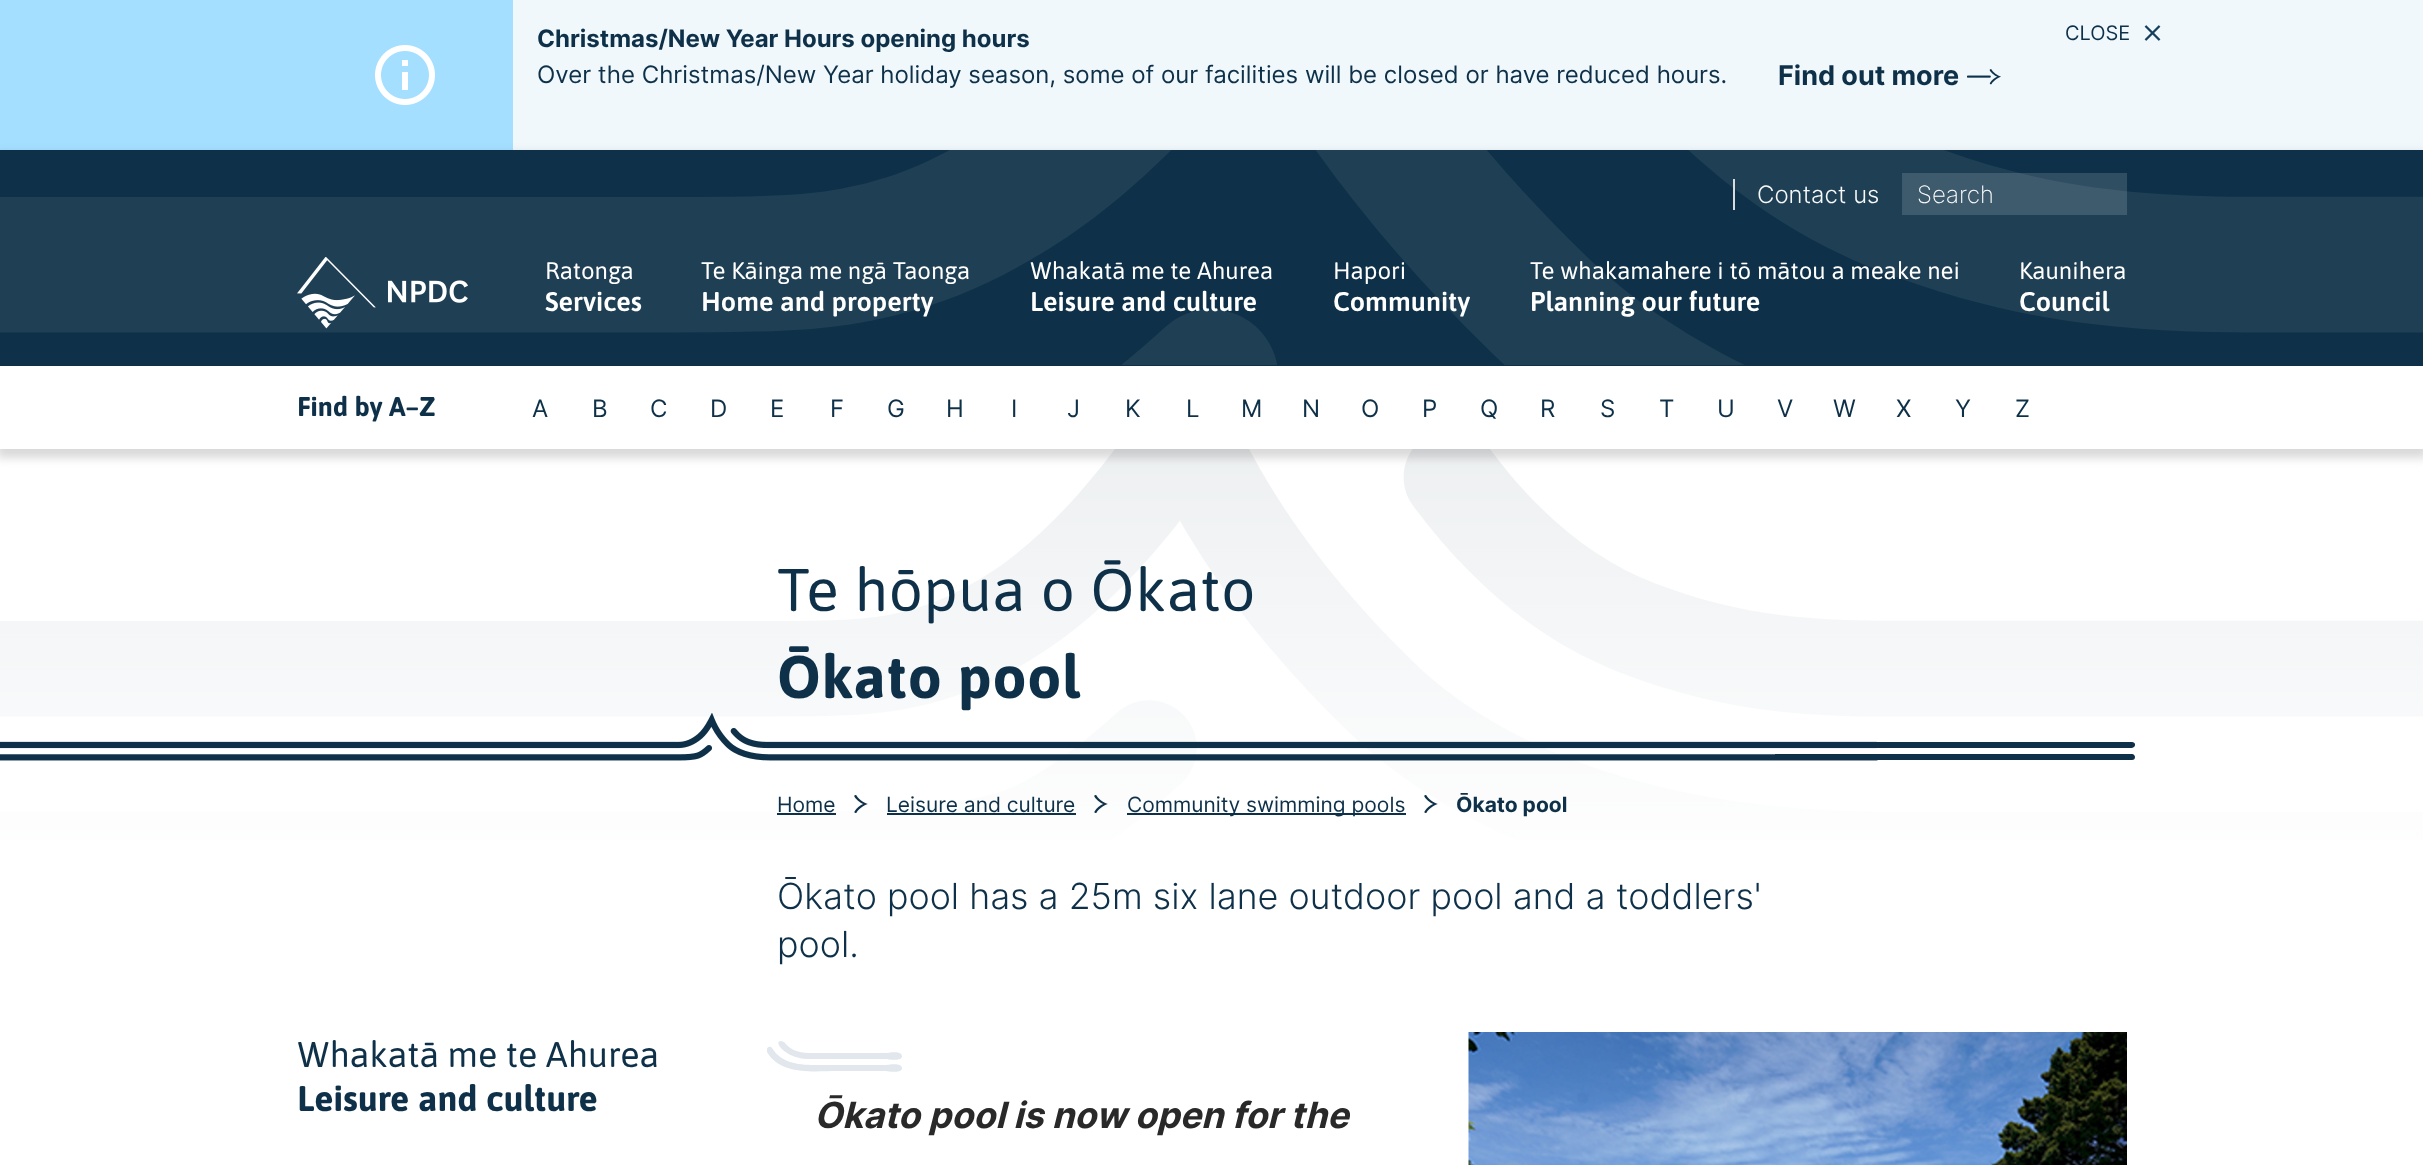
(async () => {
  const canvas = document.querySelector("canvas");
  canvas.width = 2423;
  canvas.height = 1165;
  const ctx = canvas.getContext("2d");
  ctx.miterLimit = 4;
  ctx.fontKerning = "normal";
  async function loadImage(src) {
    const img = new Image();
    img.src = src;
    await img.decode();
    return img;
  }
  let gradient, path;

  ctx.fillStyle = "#ffffff";
  ctx.fillRect(0, 0, 2423, 1165);
  ctx.fillStyle = "#f0f8fc";
  ctx.fillRect(513, 0, 1910, 150);
  ctx.fillStyle = "#a5dfff";
  ctx.fillRect(0, 0, 513, 150);
  ctx.drawImage(await loadImage("img/1.png"), 375, 45, 60, 60);
  ctx.drawImage(await loadImage("img/2.png"), 1967, 69, 34, 16);
  ctx.drawImage(await loadImage("img/3.png"), 2144, 25, 17, 16);
  ctx.drawImage(await loadImage("img/6.png"), 0, 449, 2423, 391);
  gradient = ctx.createLinearGradient(1212, 448, 1212, 903);
  gradient.addColorStop(0, "rgba(255, 255, 255, 0.92)");
  gradient.addColorStop(0.93, "#ffffff");
  gradient.addColorStop(1, "#ffffff");
  ctx.fillStyle = gradient;
  ctx.fillRect(0, 449, 2423, 391);
  ctx.fillStyle = "rgba(0, 0, 0, 0.15)";
  ctx.filter = "blur(5px)";
  ctx.beginPath();
  ctx.rect(-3, 153, 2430, 305);
  ctx.fill();
  ctx.filter = "none";
  ctx.fillStyle = "#0e3149";
  ctx.fillRect(0, 150, 2423, 216);
  ctx.drawImage(await loadImage("img/4.png"), 0, 150, 2423, 215);
  ctx.fillStyle = "rgba(225, 225, 225, 0.97)";
  ctx.fillRect(1733, 179, 2, 31);
  ctx.fillStyle = "rgba(255, 255, 255, 0.14)";
  ctx.fillRect(1902, 173, 225, 42);
  ctx.drawImage(await loadImage("img/5.png"), 297, 257, 171, 72);
  ctx.fillStyle = "#ffffff";
  ctx.fillRect(0, 366, 2423, 83);
  ctx.save();
  ctx.beginPath();
  ctx.rect(1775, 713, 360, 48);
  ctx.clip();
  ctx.fillStyle = "#0e3149";
  path = new Path2D("M671 754H2132C2134 754 2135 756 2135 757C2135 759 2134 760 2132 760H671ZM671 742H2132C2135 742 2136 745 2134 747L2132 748H670Z");
  ctx.fill(path, "evenodd");
  ctx.restore();
  ctx.drawImage(await loadImage("img/7.png"), 0, 713, 1878, 48);
  ctx.fillStyle = "#0e3149";
  ctx.fillRect(777, 813, 59, 2);
  ctx.drawImage(await loadImage("img/8.png"), 854, 795, 14, 18);
  ctx.fillRect(887, 813, 189, 2);
  ctx.drawImage(await loadImage("img/9.png"), 1094, 795, 14, 18);
  ctx.fillRect(1127, 813, 279, 2);
  ctx.drawImage(await loadImage("img/10.png"), 1424, 795, 14, 18);
  ctx.save();
  ctx.beginPath();
  ctx.rect(767, 1041, 135, 36);
  ctx.clip();
  ctx.fillStyle = "#e1e7ec";
  path = new Path2D("M772 1048C783 1066 805 1065 823 1065H883C890 1065 901 1062 902 1068C902 1074 890 1071 883 1071H838C815 1071 781 1076 767 1052C765 1048 770 1045 772 1048ZM784 1042C794 1055 809 1053 823 1053H883C890 1053 901 1050 902 1056C902 1062 890 1059 884 1059H807C784 1058 773 1041 781 1041Z");
  ctx.fill(path, "evenodd");
  ctx.restore();
  ctx.drawImage(await loadImage("img/11.png"), 1468, 1032, 659, 133);
  ctx.font = "bold 24px Inter";
  ctx.fillText("Christmas/New Year Hours opening hours", 537, 47);
  ctx.font = "24px Inter";
  ctx.fillText("Over the Christmas/New Year holiday season, some of our facilities will be closed or have reduced hours.", 537, 83);
  ctx.font = "bold 27px Inter";
  ctx.fillText("Find out more", 1778, 85);
  ctx.font = "20px Inter";
  ctx.fillText("CLOSE", 2065, 40);
  ctx.font = "300 24px Inter";
  ctx.fillStyle = "#f8f9fa";
  ctx.fillText("Contact us", 1757, 203);
  ctx.font = "200 24px Inter";
  ctx.fillStyle = "#ffffff";
  ctx.fillText("Search", 1917, 203);
  ctx.font = "24px Asap";
  ctx.fillText("Ratonga", 545, 279);
  ctx.font = "600 27px Asap";
  ctx.fillText("Services", 545, 311);
  ctx.font = "24px Asap";
  ctx.fillText("Te Kāinga me ngā Taonga", 701, 279);
  ctx.font = "600 27px Asap";
  ctx.fillText("Home and property", 701, 311);
  ctx.font = "24px Asap";
  ctx.fillText("Whakatā me te Ahurea", 1030, 279);
  ctx.font = "600 27px Asap";
  ctx.fillText("Leisure and culture", 1030, 311);
  ctx.font = "24px Asap";
  ctx.fillText("Hapori", 1333, 279);
  ctx.font = "600 27px Asap";
  ctx.fillText("Community", 1333, 311);
  ctx.font = "24px Asap";
  ctx.fillText("Te whakamahere i tō mātou a meake nei", 1530, 279);
  ctx.font = "600 27px Asap";
  ctx.fillText("Planning our future", 1530, 311);
  ctx.font = "24px Asap";
  ctx.fillText("Kaunihera", 2019, 279);
  ctx.font = "600 27px Asap";
  ctx.fillText("Council", 2019, 311);
  ctx.font = "bold 27px Asap";
  ctx.fillStyle = "#0e3149";
  ctx.fillText("Find by A–Z", 297, 416);
  ctx.font = "24px Inter";
  for (const [text, x, y] of [
    ["A", 532, 417],
    ["B", 592, 417],
    ["C", 650, 417],
    ["D", 710, 417],
    ["E", 770, 417],
    ["F", 830, 417],
    ["G", 887, 417],
    ["H", 946, 417],
    ["I", 1011, 417],
    ["J", 1067, 417],
    ["K", 1125, 417],
    ["L", 1186, 417],
    ["M", 1241, 417],
    ["N", 1302, 417],
    ["O", 1361, 417],
    ["P", 1422, 417],
    ["Q", 1480, 417],
    ["R", 1540, 417],
    ["S", 1600, 417],
    ["T", 1659, 417],
    ["U", 1717, 417],
    ["V", 1777, 417],
    ["W", 1833, 417],
    ["X", 1896, 417],
    ["Y", 1955, 417],
    ["Z", 2015, 417],
  ]) {
    ctx.fillText(text, x, y);
  }
  ctx.letterSpacing = "0.6px";
  ctx.font = "60px Asap";
  ctx.fillText("Te hōpua o Ōkato", 777, 611);
  ctx.font = "bold 60px Asap";
  ctx.fillText("Ōkato pool", 777, 698);
  ctx.letterSpacing = "0px";
  ctx.font = "21px Inter";
  for (const [text, x, y] of [
    ["Home", 777, 812],
    ["Leisure and culture", 886, 812],
    ["Community swimming pools", 1127, 812],
  ]) {
    ctx.fillText(text, x, y);
  }
  ctx.font = "bold 21px Inter";
  ctx.fillText("Ōkato pool", 1456, 812);
  ctx.font = "300 35.9px Inter";
  ctx.fillText("Ōkato pool has a 25m six lane outdoor pool and a toddlers'", 777, 909);
  ctx.fillText("pool.", 777, 957);
  ctx.font = "35.75px Asap";
  ctx.fillText("Whakatā me te Ahurea", 297, 1067);
  ctx.font = "bold 35.75px Asap";
  ctx.fillText("Leisure and culture", 297, 1111);
  ctx.font = "italic bold 36px Inter";
  ctx.fillStyle = "#292929";
  ctx.fillText("Ōkato pool is now open for the", 814, 1128);
})();
